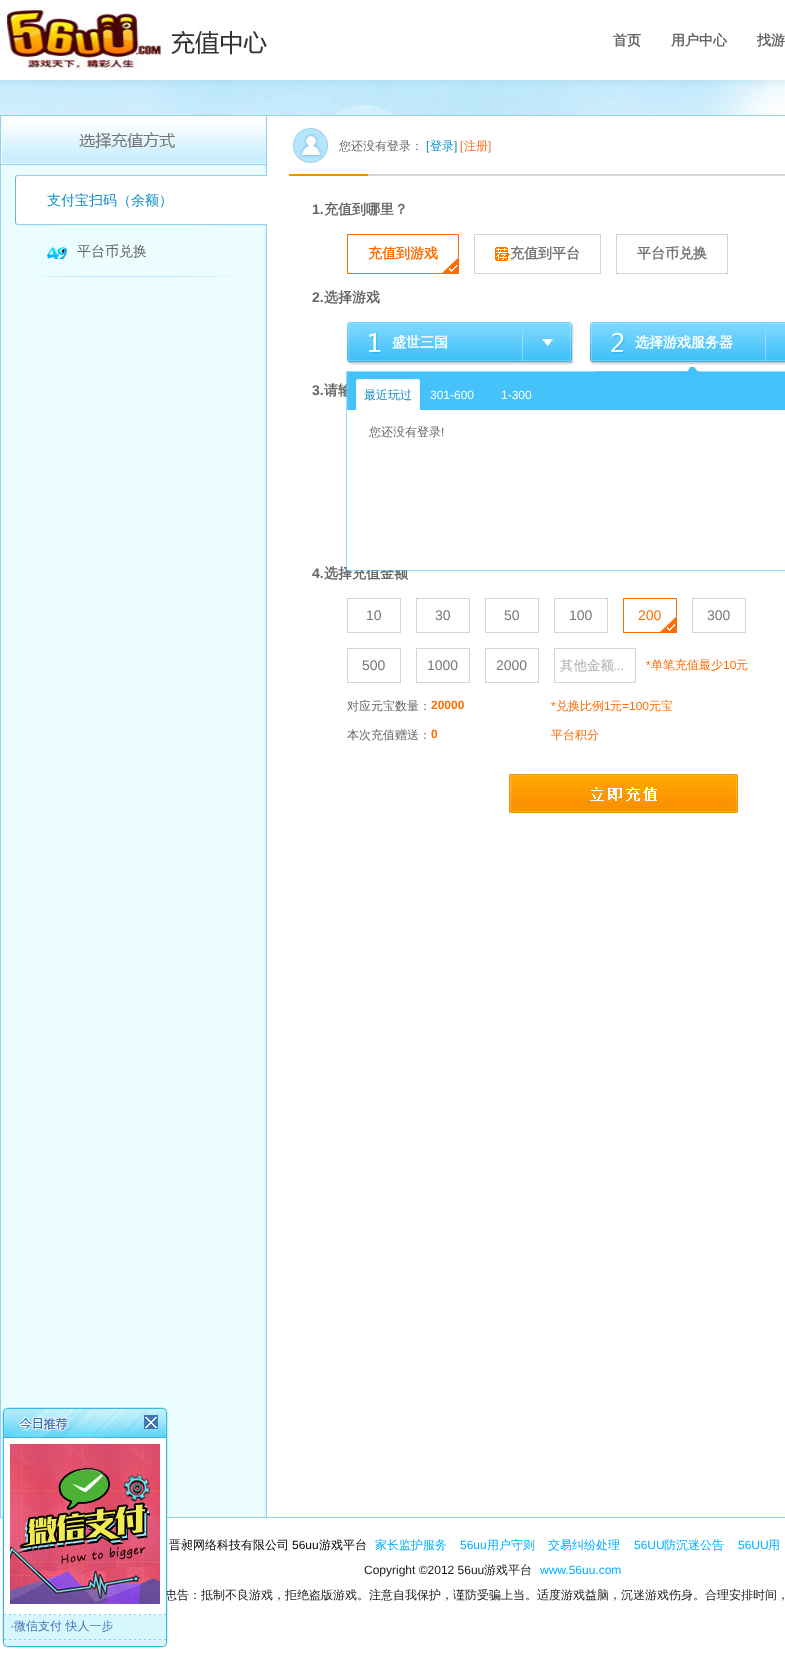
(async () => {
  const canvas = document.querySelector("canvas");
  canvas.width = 785;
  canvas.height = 1665;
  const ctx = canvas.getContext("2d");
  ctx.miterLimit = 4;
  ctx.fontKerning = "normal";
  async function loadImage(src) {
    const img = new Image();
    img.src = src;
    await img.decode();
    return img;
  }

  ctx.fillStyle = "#ffffff";
  ctx.fillRect(0, 0, 785, 1665);
  ctx.drawImage(await loadImage("img/1.png"), 0, 80, 785, 35);
  ctx.drawImage(await loadImage("img/2.png"), 0, 7, 164, 64);
  ctx.drawImage(await loadImage("img/3.png"), 170, 25, 97, 31);
  ctx.drawImage(await loadImage("img/4.png"), 0, 165, 267, 1352);
  ctx.fillStyle = "#95d1ed";
  ctx.fillRect(0, 115, 785, 1);
  ctx.fillRect(0, 1517, 785, 1);
  ctx.drawImage(await loadImage("img/5.png"), 0, 116, 267, 49);
  ctx.drawImage(await loadImage("img/6.png"), 8, 175, 259, 51);
  ctx.drawImage(await loadImage("img/7.png"), 34, 226, 198, 51);
  ctx.drawImage(await loadImage("img/8.png"), 47, 244, 20, 15);
  ctx.drawImage(await loadImage("img/9.png"), 283, 124, 502, 52);
  ctx.drawImage(await loadImage("img/10.png"), 442, 258, 16, 15);
  ctx.strokeStyle = "#ff6c00";
  ctx.strokeRect(347.5, 234.5, 111, 39);
  ctx.strokeStyle = "#d4d4d4";
  ctx.strokeRect(474.5, 234.5, 126, 39);
  ctx.drawImage(await loadImage("img/11.png"), 495, 247, 15, 14);
  ctx.strokeRect(616.5, 234.5, 111, 39);
  ctx.drawImage(await loadImage("img/12.png"), 347, 322, 228, 45);
  ctx.drawImage(await loadImage("img/13.png"), 590, 322, 195, 45);
  ctx.strokeRect(347.5, 598.5, 53, 34);
  ctx.strokeRect(416.5, 598.5, 53, 34);
  ctx.strokeRect(485.5, 598.5, 53, 34);
  ctx.strokeRect(554.5, 598.5, 53, 34);
  ctx.drawImage(await loadImage("img/10.png"), 660, 617, 16, 15);
  ctx.strokeStyle = "#ff6c00";
  ctx.strokeRect(623.5, 598.5, 53, 34);
  ctx.strokeStyle = "#d4d4d4";
  ctx.strokeRect(692.5, 598.5, 53, 34);
  ctx.strokeRect(347.5, 648.5, 53, 34);
  ctx.strokeRect(416.5, 648.5, 53, 34);
  ctx.strokeRect(485.5, 648.5, 53, 34);
  ctx.strokeRect(554.5, 648.5, 81, 34);
  ctx.drawImage(await loadImage("img/14.png"), 509, 774, 229, 39);
  ctx.font = "bold 14px WenQuanYi Zen Hei";
  ctx.fillStyle = "#666666";
  for (const [text, x, y] of [
    ["首页", 613, 45],
    ["用户中心", 671, 45],
    ["找游", 757, 45],
  ]) {
    ctx.fillText(text, x, y);
  }
  ctx.font = "500 14px WenQuanYi Zen Hei";
  ctx.fillStyle = "#0f8dc4";
  ctx.fillText("支付宝扫码（余额）", 47, 205);
  ctx.fillStyle = "#666666";
  ctx.fillText("平台币兑换", 77, 256);
  ctx.font = "500 12px WenQuanYi Zen Hei";
  ctx.fillText("您还没有登录：", 339, 150);
  ctx.font = "12px Liberation Sans";
  ctx.fillStyle = "#0f8dc4";
  ctx.fillText("[", 426, 150);
  ctx.font = "500 12px WenQuanYi Zen Hei";
  ctx.fillText("登录", 430, 150);
  ctx.font = "12px Liberation Sans";
  ctx.fillText("]", 454, 150);
  ctx.fillStyle = "#ff7429";
  ctx.fillText("[", 460, 150);
  ctx.font = "500 12px WenQuanYi Zen Hei";
  ctx.fillText("注册", 464, 150);
  ctx.font = "12px Liberation Sans";
  ctx.fillText("]", 488, 150);
  ctx.font = "bold 14px Liberation Sans";
  ctx.fillStyle = "#666666";
  ctx.fillText("1.", 312, 214);
  ctx.font = "bold 14px WenQuanYi Zen Hei";
  ctx.fillText("充值到哪里？", 324, 214);
  ctx.fillStyle = "#ff6c00";
  ctx.fillText("充值到游戏", 368, 258);
  ctx.fillStyle = "#777777";
  ctx.fillText("充值到平台", 510, 258);
  ctx.fillText("平台币兑换", 637, 258);
  ctx.font = "bold 14px Liberation Sans";
  ctx.fillStyle = "#666666";
  ctx.fillText("2.", 312, 302);
  ctx.font = "bold 14px WenQuanYi Zen Hei";
  ctx.fillText("选择游戏", 324, 302);
  ctx.fillStyle = "#ffffff";
  ctx.fillText("盛世三国", 392, 347);
  ctx.fillText("选择游戏服务器", 635, 347);
  ctx.font = "bold 14px Liberation Sans";
  ctx.fillStyle = "#666666";
  ctx.fillText("3.", 312, 395);
  ctx.font = "bold 14px WenQuanYi Zen Hei";
  ctx.fillText("请输", 324, 395);
  ctx.font = "bold 14px Liberation Sans";
  ctx.fillText("4.", 312, 578);
  ctx.font = "bold 14px WenQuanYi Zen Hei";
  ctx.fillText("选择充值金额", 324, 578);
  ctx.font = "14px Liberation Sans";
  ctx.fillStyle = "#777777";
  for (const [text, x, y] of [
    ["10", 366, 620],
    ["30", 435, 620],
    ["50", 504, 620],
    ["100", 569, 620],
  ]) {
    ctx.fillText(text, x, y);
  }
  ctx.fillStyle = "#ff6c00";
  ctx.fillText("200", 638, 620);
  ctx.fillStyle = "#777777";
  for (const [text, x, y] of [
    ["300", 707, 620],
    ["500", 362, 670],
    ["1000", 427, 670],
    ["2000", 496, 670],
  ]) {
    ctx.fillText(text, x, y);
  }
  ctx.font = "500 13.5px WenQuanYi Zen Hei";
  ctx.fillStyle = "#aeaeae";
  ctx.fillText("其他金额", 560, 670);
  ctx.font = "13.5px Liberation Sans";
  ctx.fillText("...", 613, 670);
  ctx.font = "12px Liberation Sans";
  ctx.fillStyle = "#ff6c00";
  ctx.fillText("*", 646, 669);
  ctx.font = "500 12px WenQuanYi Zen Hei";
  ctx.fillText("单笔充值最少", 651, 669);
  ctx.font = "12px Liberation Sans";
  ctx.fillText("10", 723, 669);
  ctx.font = "500 12px WenQuanYi Zen Hei";
  ctx.fillText("元", 736, 669);
  ctx.fillStyle = "#666666";
  ctx.fillText("对应元宝数量：", 347, 710);
  ctx.font = "bold 12px Liberation Sans";
  ctx.fillStyle = "#ff6c00";
  ctx.fillText("20000", 431, 709);
  ctx.font = "12px Liberation Sans";
  ctx.fillText("*", 551, 710);
  ctx.font = "500 12px WenQuanYi Zen Hei";
  ctx.fillText("兑换比例", 556, 710);
  ctx.font = "12px Liberation Sans";
  ctx.fillText("1", 604, 710);
  ctx.font = "500 12px WenQuanYi Zen Hei";
  ctx.fillText("元", 610, 710);
  ctx.font = "12px Liberation Sans";
  ctx.fillText("=100", 622, 710);
  ctx.font = "500 12px WenQuanYi Zen Hei";
  ctx.fillText("元宝", 649, 710);
  ctx.fillStyle = "#666666";
  ctx.fillText("本次充值赠送：", 347, 739);
  ctx.font = "bold 12px Liberation Sans";
  ctx.fillStyle = "#ff6c00";
  ctx.fillText("0", 431, 738);
  ctx.font = "500 12px WenQuanYi Zen Hei";
  ctx.fillText("平台积分", 551, 739);
  ctx.drawImage(await loadImage("img/15.png"), 346, 367, 439, 204);
  ctx.drawImage(await loadImage("img/16.png"), 356, 379, 64, 32);
  ctx.fillStyle = "#0f8dc4";
  ctx.fillText("最近玩过", 364, 399);
  ctx.font = "12px Liberation Sans";
  ctx.fillStyle = "#ffffff";
  ctx.fillText("301-600", 430, 399);
  ctx.fillText("1-300", 501, 399);
  ctx.font = "500 12px WenQuanYi Zen Hei";
  ctx.fillStyle = "#666666";
  ctx.fillText("您还没有登录", 369, 436);
  ctx.font = "12px Liberation Sans";
  ctx.fillText("!", 441, 436);
  ctx.font = "500 12px WenQuanYi Zen Hei";
  ctx.fillStyle = "#000000";
  ctx.fillText("晋昶网络科技有限公司", 169, 1549);
  ctx.font = "12px Liberation Sans";
  ctx.fillText("56uu", 292, 1549);
  ctx.font = "500 12px WenQuanYi Zen Hei";
  ctx.fillText("游戏平台", 319, 1549);
  ctx.fillStyle = "#02aefe";
  ctx.fillText("家长监护服务", 375, 1549);
  ctx.font = "12px Liberation Sans";
  ctx.fillText("56uu", 460, 1549);
  ctx.font = "500 12px WenQuanYi Zen Hei";
  ctx.fillText("用户守则", 487, 1549);
  ctx.fillText("交易纠纷处理", 548, 1549);
  ctx.font = "12px Liberation Sans";
  ctx.fillText("56UU", 634, 1549);
  ctx.font = "500 12px WenQuanYi Zen Hei";
  ctx.fillText("防沉迷公告", 664, 1549);
  ctx.font = "12px Liberation Sans";
  ctx.fillText("56UU", 738, 1549);
  ctx.font = "500 12px WenQuanYi Zen Hei";
  ctx.fillText("用", 768, 1549);
  ctx.font = "12px Liberation Sans";
  ctx.fillStyle = "#1b1a1a";
  ctx.fillText("Copyright ©2012 56uu", 364, 1574);
  ctx.font = "500 12px WenQuanYi Zen Hei";
  ctx.fillText("游戏平台", 484, 1574);
  ctx.font = "12px Liberation Sans";
  ctx.fillStyle = "#02aefe";
  ctx.fillText("www.56uu.com", 540, 1574);
  ctx.font = "500 12px WenQuanYi Zen Hei";
  ctx.fillStyle = "#1b1a1a";
  ctx.fillText("忠告：抵制不良游戏，拒绝盗版游戏。注意自我保护，谨防受骗上当。适度游戏益脑，沉迷游戏伤身。合理安排时间，", 165, 1599);
  ctx.drawImage(await loadImage("img/17.png"), 2, 1407, 166, 241);
  ctx.drawImage(await loadImage("img/18.png"), 144, 1415, 14, 14);
  ctx.drawImage(await loadImage("img/19.png"), 10, 1444, 150, 160);
  ctx.font = "12px Liberation Sans";
  ctx.fillStyle = "#4277b8";
  ctx.fillText("·", 10, 1630);
  ctx.font = "500 12px WenQuanYi Zen Hei";
  ctx.fillText("微信支付 快人一步", 14, 1630);
})();
